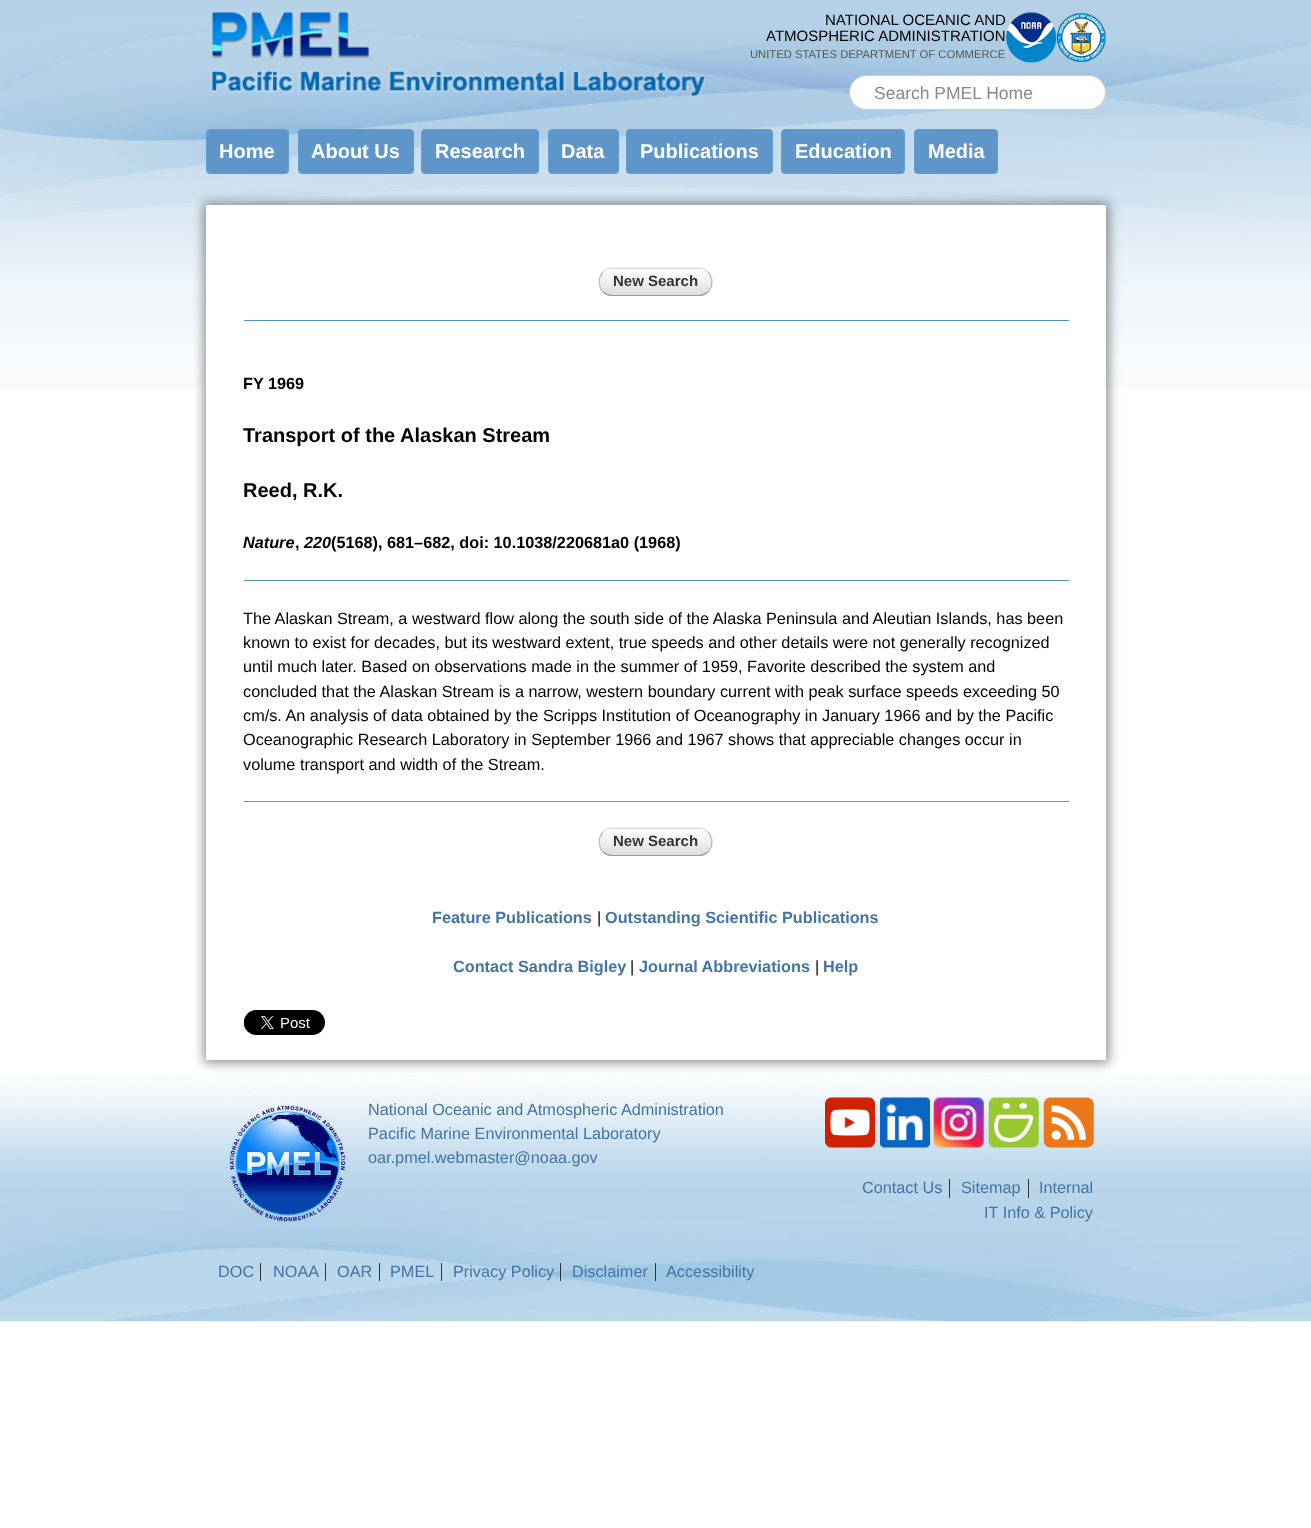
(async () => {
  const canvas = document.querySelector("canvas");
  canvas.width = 1311;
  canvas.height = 1528;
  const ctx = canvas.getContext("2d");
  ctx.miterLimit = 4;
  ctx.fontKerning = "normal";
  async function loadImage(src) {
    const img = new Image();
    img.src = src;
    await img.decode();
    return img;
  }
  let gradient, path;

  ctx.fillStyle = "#ffffff";
  ctx.fillRect(0, 0, 1311, 1528);
  ctx.drawImage(await loadImage("img/1.png"), 0, 0, 1311, 389);
  ctx.drawImage(await loadImage("img/2.png"), 212, 12, 493, 86);
  ctx.drawImage(await loadImage("img/3.png"), 1006, 12, 51, 51);
  ctx.drawImage(await loadImage("img/4.png"), 1057, 13, 49, 49);
  ctx.beginPath();
  ctx.roundRect(849.5, 75.5, 256, 34, 17);
  ctx.fill();
  ctx.strokeStyle = "#cccccc";
  ctx.stroke();
  ctx.fillStyle = "#5e96c9";
  ctx.beginPath();
  ctx.roundRect(206.5, 129.5, 82, 44, 3.5);
  ctx.fill();
  ctx.strokeStyle = "#5f9fd6";
  ctx.stroke();
  ctx.beginPath();
  ctx.roundRect(298.5, 129.5, 115, 44, 3.5);
  ctx.fill();
  ctx.stroke();
  ctx.beginPath();
  ctx.roundRect(421.5, 129.5, 117, 44, 3.5);
  ctx.fill();
  ctx.stroke();
  ctx.beginPath();
  ctx.roundRect(548.5, 129.5, 70, 44, 3.5);
  ctx.fill();
  ctx.stroke();
  ctx.beginPath();
  ctx.roundRect(626.5, 129.5, 146, 44, 3.5);
  ctx.fill();
  ctx.stroke();
  ctx.beginPath();
  ctx.roundRect(781.5, 129.5, 123, 44, 3.5);
  ctx.fill();
  ctx.stroke();
  ctx.beginPath();
  ctx.roundRect(914.5, 129.5, 83, 44, 3.5);
  ctx.fill();
  ctx.stroke();
  ctx.drawImage(await loadImage("img/12.png"), 0, 1074, 1311, 248);
  ctx.fillStyle = "rgba(68, 68, 68, 0.6)";
  ctx.filter = "blur(6px)";
  ctx.beginPath();
  ctx.rect(204, 203, 905, 860);
  ctx.fill();
  ctx.filter = "none";
  ctx.fillStyle = "#ffffff";
  ctx.fillRect(206, 205, 900, 855);
  ctx.save();
  ctx.beginPath();
  ctx.roundRect(599, 268, 114, 28, 14);
  ctx.clip();
  gradient = ctx.createLinearGradient(600, 243, 600, 269);
  gradient.addColorStop(0, "#ffffff");
  gradient.addColorStop(1, "#dddddd");
  ctx.fillStyle = gradient;
  ctx.fillRect(608, 268, 96, 1);
  gradient = ctx.createLinearGradient(600, 269, 600, 295);
  gradient.addColorStop(0, "#ffffff");
  gradient.addColorStop(1, "#dddddd");
  ctx.fillStyle = gradient;
  ctx.fillRect(599, 269, 114, 26);
  ctx.restore();
  path = new Path2D("M603 272C605.5 269.5 609 268 612.5 268H699C702 268 705.5 269.5 708 272");
  ctx.strokeStyle = "#dddddd";
  ctx.lineWidth = 1.2;
  ctx.stroke(path);
  path = new Path2D("M708 272C713 277 713 286.5 708 292");
  ctx.strokeStyle = "#bbbbbb";
  ctx.stroke(path);
  path = new Path2D("M708 292C705.5 294 702 295.5 699 295.5H612.5C609 295.5 605.5 294 603 292");
  ctx.strokeStyle = "#999999";
  ctx.stroke(path);
  path = new Path2D("M603 292C598 286.5 598 277 603 272");
  ctx.strokeStyle = "#bbbbbb";
  ctx.stroke(path);
  for (const [x, y, w, h, color] of [
    [244, 320, 825, 1, "#5294c1"],
    [244, 580, 825, 1, "#5294c1"],
    [244, 801, 825, 1, "#5294c1"],
  ]) {
    ctx.fillStyle = color;
    ctx.fillRect(x, y, w, h);
  }
  ctx.save();
  ctx.beginPath();
  ctx.roundRect(599, 828, 114, 28, 14);
  ctx.clip();
  gradient = ctx.createLinearGradient(600, 803, 600, 829);
  gradient.addColorStop(0, "#ffffff");
  gradient.addColorStop(1, "#dddddd");
  ctx.fillStyle = gradient;
  ctx.fillRect(608, 828, 96, 1);
  gradient = ctx.createLinearGradient(600, 829, 600, 855);
  gradient.addColorStop(0, "#ffffff");
  gradient.addColorStop(1, "#dddddd");
  ctx.fillStyle = gradient;
  ctx.fillRect(599, 829, 114, 26);
  ctx.restore();
  path = new Path2D("M603 832C605.5 829.5 609 828 612.5 828H699C702 828 705.5 829.5 708 832");
  ctx.strokeStyle = "#dddddd";
  ctx.stroke(path);
  path = new Path2D("M708 832C713 837 713 846.5 708 852");
  ctx.strokeStyle = "#bbbbbb";
  ctx.stroke(path);
  path = new Path2D("M708 852C705.5 854 702 855.5 699 855.5H612.5C609 855.5 605.5 854 603 852");
  ctx.strokeStyle = "#999999";
  ctx.stroke(path);
  path = new Path2D("M603 852C598 846.5 598 837 603 832");
  ctx.strokeStyle = "#bbbbbb";
  ctx.stroke(path);
  ctx.drawImage(await loadImage("img/5.png"), 243, 1010, 82, 25);
  ctx.drawImage(await loadImage("img/6.png"), 229, 1105, 117, 117);
  for (const [x, y, w, h, color] of [
    [260, 1263, 1, 18, "#333333"],
    [325, 1263, 1, 18, "#333333"],
    [379, 1263, 1, 18, "#333333"],
    [441, 1263, 1, 18, "#333333"],
    [560, 1263, 1, 18, "#333333"],
    [655, 1263, 1, 18, "#333333"],
  ]) {
    ctx.fillStyle = color;
    ctx.fillRect(x, y, w, h);
  }
  ctx.drawImage(await loadImage("img/7.png"), 825, 1097, 50, 51);
  ctx.drawImage(await loadImage("img/8.png"), 880, 1097, 50, 51);
  ctx.drawImage(await loadImage("img/9.png"), 933, 1097, 51, 51);
  ctx.drawImage(await loadImage("img/10.png"), 988, 1097, 51, 51);
  ctx.drawImage(await loadImage("img/11.png"), 1043, 1097, 51, 51);
  ctx.fillRect(949, 1179, 1, 19);
  ctx.fillRect(1028, 1179, 1, 19);
  ctx.font = "15px Liberation Sans";
  ctx.fillStyle = "#000000";
  ctx.fillText("NATIONAL OCEANIC AND", 825, 25);
  ctx.fillText("ATMOSPHERIC ADMINISTRATION", 766, 41);
  ctx.font = "11.25px Liberation Sans";
  ctx.fillStyle = "#555555";
  ctx.fillText("UNITED STATES DEPARTMENT OF COMMERCE", 750, 58);
  ctx.font = "17.5px Liberation Sans";
  ctx.fillStyle = "#888888";
  ctx.fillText("Search PMEL Home", 874, 99);
  ctx.font = "bold 20px Liberation Sans";
  ctx.fillStyle = "#ffffff";
  for (const [text, x, y] of [
    ["Home", 219, 158],
    ["About Us", 311, 158],
    ["Research", 435, 158],
    ["Data", 561, 158],
    ["Publications", 640, 158],
    ["Education", 795, 158],
    ["Media", 928, 158],
  ]) {
    ctx.fillText(text, x, y);
  }
  ctx.font = "bold 15px Liberation Sans";
  ctx.fillStyle = "#333333";
  ctx.fillText("New Search", 613, 286);
  ctx.font = "bold 16.25px Liberation Sans";
  ctx.fillStyle = "#000000";
  ctx.fillText("FY 1969", 243, 389);
  ctx.font = "bold 20px Liberation Sans";
  ctx.fillText("Transport of the Alaskan Stream", 243, 442);
  ctx.fillText("Reed, R.K.", 243, 497);
  ctx.font = "italic bold 16.25px Liberation Sans";
  ctx.fillText("Nature", 243, 548);
  ctx.font = "bold 16.25px Liberation Sans";
  ctx.fillText(",", 295, 548);
  ctx.font = "italic bold 16.25px Liberation Sans";
  ctx.fillText("220", 304, 548);
  ctx.font = "bold 16.25px Liberation Sans";
  ctx.fillText("(5168), 681–682, doi: 10.1038/220681a0 (1968)", 331, 548);
  ctx.font = "16.25px Liberation Sans";
  for (const [text, x, y] of [
    ["The Alaskan Stream, a westward flow along the south side of the Alaska Peninsula and Aleutian Islands, has been", 243, 624],
    ["known to exist for decades, but its westward extent, true speeds and other details were not generally recognized", 243, 648],
    ["until much later. Based on observations made in the summer of 1959, Favorite described the system and", 243, 672],
    ["concluded that the Alaskan Stream is a narrow, western boundary current with peak surface speeds exceeding 50", 243, 697],
    ["cm/s. An analysis of data obtained by the Scripps Institution of Oceanography in January 1966 and by the Pacific", 243, 721],
    ["Oceanographic Research Laboratory in September 1966 and 1967 shows that appreciable changes occur in", 243, 745],
    ["volume transport and width of the Stream.", 243, 770],
  ]) {
    ctx.fillText(text, x, y);
  }
  ctx.font = "bold 15px Liberation Sans";
  ctx.fillStyle = "#333333";
  ctx.fillText("New Search", 613, 846);
  ctx.font = "bold 16.25px Liberation Sans";
  ctx.fillStyle = "#4474a3";
  ctx.fillText("Feature Publications", 432, 923);
  ctx.font = "16.25px Liberation Sans";
  ctx.fillStyle = "#000000";
  ctx.fillText("|", 597, 923);
  ctx.font = "bold 16.25px Liberation Sans";
  ctx.fillStyle = "#4474a3";
  ctx.fillText("Outstanding Scientific Publications", 605, 923);
  ctx.fillText("Contact Sandra Bigley", 453, 972);
  ctx.font = "16.25px Liberation Sans";
  ctx.fillStyle = "#000000";
  ctx.fillText("|", 630, 972);
  ctx.font = "bold 16.25px Liberation Sans";
  ctx.fillStyle = "#4474a3";
  ctx.fillText("Journal Abbreviations", 639, 972);
  ctx.font = "16.25px Liberation Sans";
  ctx.fillStyle = "#000000";
  ctx.fillText("|", 815, 972);
  ctx.font = "bold 16.25px Liberation Sans";
  ctx.fillStyle = "#4474a3";
  ctx.fillText("Help", 823, 972);
  ctx.font = "16.25px Liberation Sans";
  for (const [text, x, y] of [
    ["National Oceanic and Atmospheric Administration", 368, 1115],
    ["Pacific Marine Environmental Laboratory", 368, 1139],
    ["oar.pmel.webmaster@noaa.gov", 368, 1163],
    ["DOC", 218, 1277],
    ["NOAA", 273, 1277],
    ["OAR", 337, 1277],
    ["PMEL", 390, 1277],
    ["Privacy Policy", 453, 1277],
    ["Disclaimer", 572, 1277],
    ["Accessibility", 666, 1277],
    ["Contact Us", 862, 1193],
    ["Sitemap", 961, 1193],
    ["Internal", 1039, 1193],
    ["IT Info & Policy", 984, 1218],
  ]) {
    ctx.fillText(text, x, y);
  }
})();
